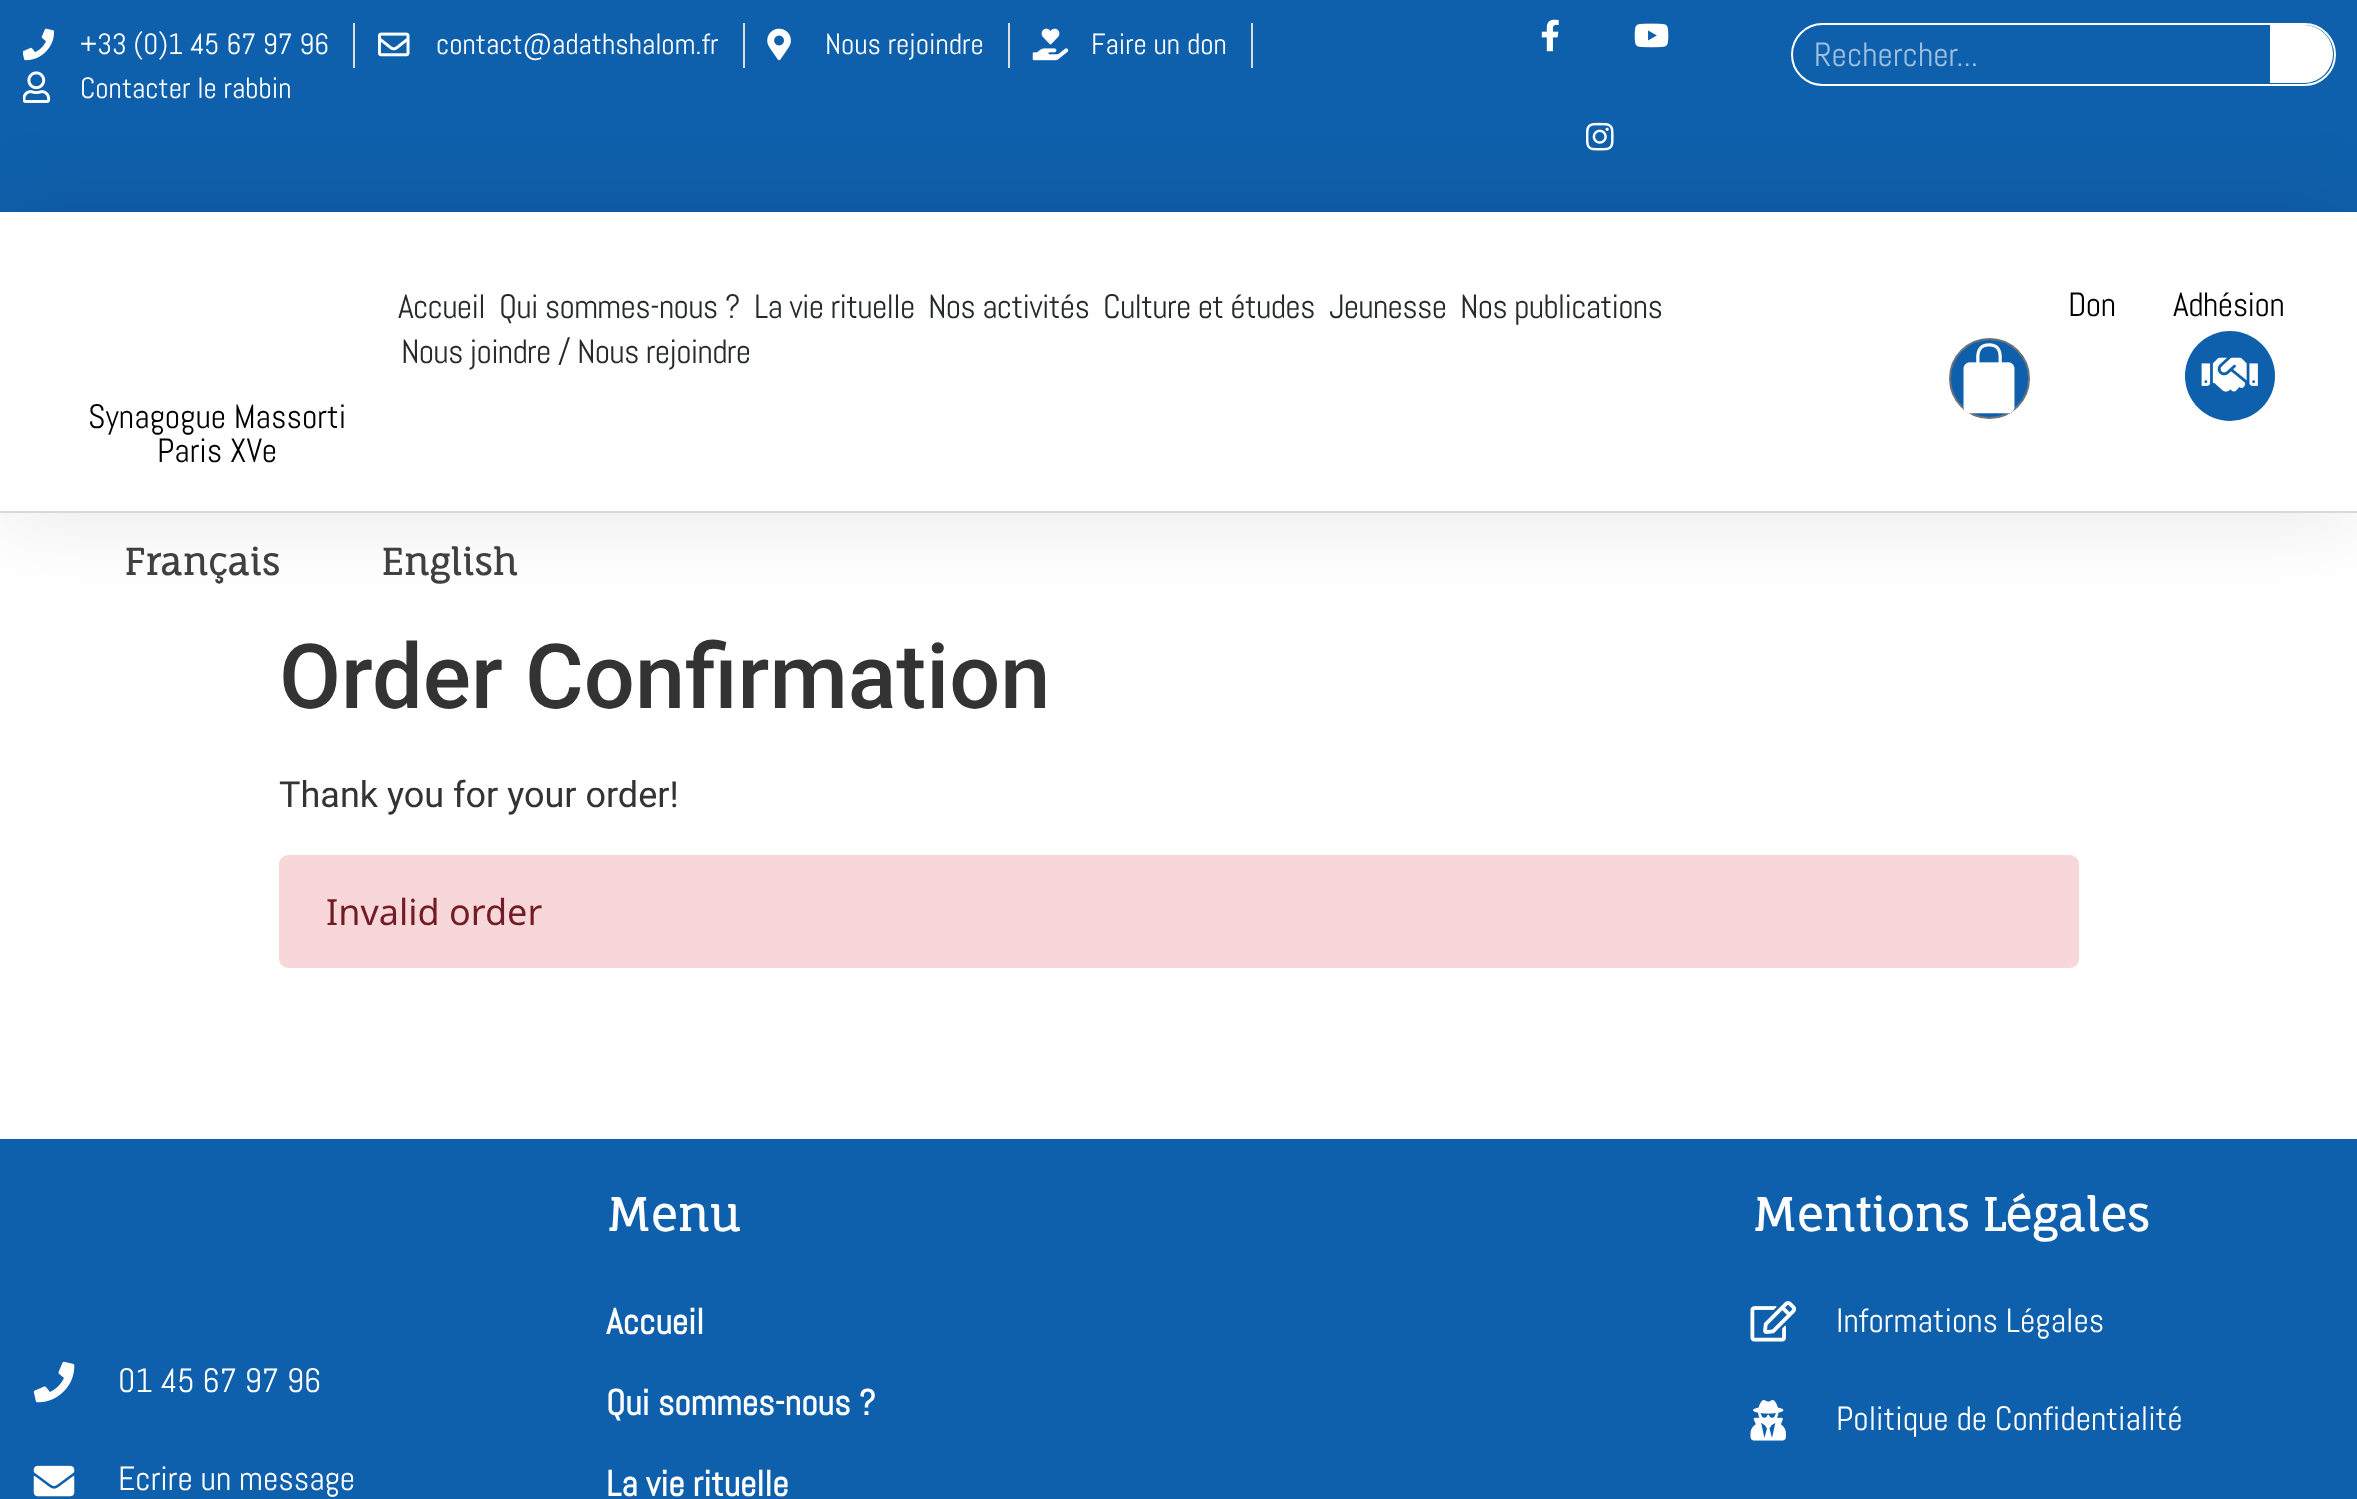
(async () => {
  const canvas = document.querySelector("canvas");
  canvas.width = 2357;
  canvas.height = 1499;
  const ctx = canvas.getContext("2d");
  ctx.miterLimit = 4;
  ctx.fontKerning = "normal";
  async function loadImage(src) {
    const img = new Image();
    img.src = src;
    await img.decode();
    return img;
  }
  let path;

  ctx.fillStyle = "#ffffff";
  ctx.fillRect(0, 0, 2357, 1499);
  ctx.fillStyle = "#0f60ac";
  ctx.fillRect(0, 0, 2357, 212);
  ctx.drawImage(await loadImage("img/1.png"), 23, 28, 32, 33);
  ctx.fillStyle = "#dddddd";
  ctx.fillRect(353, 23, 2, 45);
  ctx.drawImage(await loadImage("img/2.png"), 378, 32, 32, 25);
  ctx.fillRect(743, 23, 2, 45);
  ctx.drawImage(await loadImage("img/3.png"), 767, 28, 24, 33);
  ctx.fillRect(1008, 23, 2, 45);
  ctx.drawImage(await loadImage("img/4.png"), 1032, 28, 37, 33);
  ctx.fillRect(1251, 23, 2, 45);
  ctx.drawImage(await loadImage("img/5.png"), 23, 71, 28, 32);
  ctx.drawImage(await loadImage("img/6.png"), 1541, 19, 18, 33);
  ctx.drawImage(await loadImage("img/7.png"), 1634, 23, 35, 25);
  ctx.drawImage(await loadImage("img/8.png"), 1585, 122, 29, 29);
  ctx.beginPath();
  ctx.roundRect(1792, 24, 543, 61, 30.5);
  ctx.strokeStyle = "#ffffff";
  ctx.lineWidth = 2;
  ctx.stroke();
  ctx.fillStyle = "#ffffff";
  ctx.beginPath();
  ctx.roundRect(2270, 25, 63, 58, [0, 29, 29, 0]);
  ctx.fill();
  ctx.save();
  path = new Path2D("M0 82H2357V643H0ZM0 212H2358V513H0Z");
  ctx.clip(path, "evenodd");
  ctx.fillStyle = "rgba(0, 0, 0, 0.1)";
  ctx.filter = "blur(43px)";
  ctx.beginPath();
  ctx.rect(0, 212, 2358, 301);
  ctx.fill();
  ctx.filter = "none";
  ctx.restore();
  ctx.fillStyle = "#d8d8d8";
  ctx.fillRect(0, 511, 2357, 2);
  ctx.fillStyle = "#0f60ac";
  ctx.beginPath();
  ctx.arc(1989.5, 378.5, 39.5, 0, Math.PI * 2);
  ctx.fill();
  ctx.strokeStyle = "#69727d";
  ctx.stroke();
  ctx.drawImage(await loadImage("img/9.png"), 1963, 343, 52, 71);
  ctx.beginPath();
  ctx.arc(2230, 376, 45, 0, Math.PI * 2);
  ctx.fill();
  ctx.drawImage(await loadImage("img/10.png"), 2201, 357, 57, 35);
  ctx.fillStyle = "#f8d7da";
  ctx.beginPath();
  ctx.roundRect(279, 855, 1800, 113, 9);
  ctx.fill();
  ctx.fillStyle = "#0f60ac";
  ctx.fillRect(0, 1139, 2357, 360);
  ctx.drawImage(await loadImage("img/11.png"), 33, 1361, 42, 42);
  ctx.drawImage(await loadImage("img/12.png"), 33, 1465, 42, 32);
  ctx.drawImage(await loadImage("img/13.png"), 1750, 1301, 47, 41);
  ctx.drawImage(await loadImage("img/14.png"), 1750, 1400, 36, 41);
  ctx.font = "29.25px Abel";
  ctx.fillStyle = "#ffffff";
  for (const [text, x, y] of [
    ["+33 (0)1 45 67 97 96", 80, 54],
    ["contact@adathshalom.fr", 436, 54],
    ["Nous rejoindre", 825, 54],
    ["Faire un don", 1091, 54],
    ["Contacter le rabbin", 80, 98],
  ]) {
    ctx.fillText(text, x, y);
  }
  ctx.font = "33.75px Abel";
  ctx.fillStyle = "#9fbfde";
  ctx.fillText("Rechercher...", 1814, 66);
  ctx.letterSpacing = "-0.7px";
  ctx.fillStyle = "#262a2b";
  for (const [text, x, y] of [
    ["Accueil", 398, 318],
    ["Qui sommes-nous ?", 499, 318],
    ["La vie rituelle", 754, 318],
    ["Nos activités", 928, 318],
    ["Culture et études", 1103, 318],
    ["Jeunesse", 1329, 318],
    ["Nos publications", 1460, 318],
    ["Nous joindre / Nous rejoindre", 401, 363],
  ]) {
    ctx.fillText(text, x, y);
  }
  ctx.letterSpacing = "-0.5px";
  ctx.fillStyle = "#000000";
  ctx.fillText("Don", 2068, 316);
  ctx.fillText("Adhésion", 2173, 316);
  ctx.letterSpacing = "0px";
  ctx.fillText("Synagogue Massorti", 88, 428);
  ctx.fillText("Paris XVe", 157, 462);
  ctx.font = "bold 36px Fauna One";
  ctx.fillStyle = "#404040";
  ctx.fillText("Français", 124, 575);
  ctx.fillText("English", 381, 575);
  ctx.font = "500 90px Roboto";
  ctx.fillStyle = "#333333";
  ctx.fillText("Order Confirmation", 279, 708);
  ctx.font = "36px Roboto";
  ctx.fillText("Thank you for your order!", 279, 807);
  ctx.font = "36px Noto Sans";
  ctx.fillStyle = "#721c24";
  ctx.fillText("Invalid order", 326, 925);
  ctx.font = "33.75px Abel";
  ctx.fillStyle = "#ffffff";
  ctx.fillText("01 45 67 97 96", 118, 1392);
  ctx.fillText("Ecrire un message", 118, 1490);
  ctx.font = "bold 45px Fauna One";
  ctx.fillText("Menu", 606, 1231);
  ctx.font = "bold 36px Abel";
  for (const [text, x, y] of [
    ["Accueil", 606, 1334],
    ["Qui sommes-nous ?", 606, 1415],
    ["La vie rituelle", 606, 1496],
  ]) {
    ctx.fillText(text, x, y);
  }
  ctx.font = "bold 45px Fauna One";
  ctx.fillText("Mentions Légales", 1752, 1231);
  ctx.font = "33.75px Abel";
  ctx.fillText("Informations Légales", 1836, 1332);
  ctx.fillText("Politique de Confidentialité", 1836, 1430);
})();
